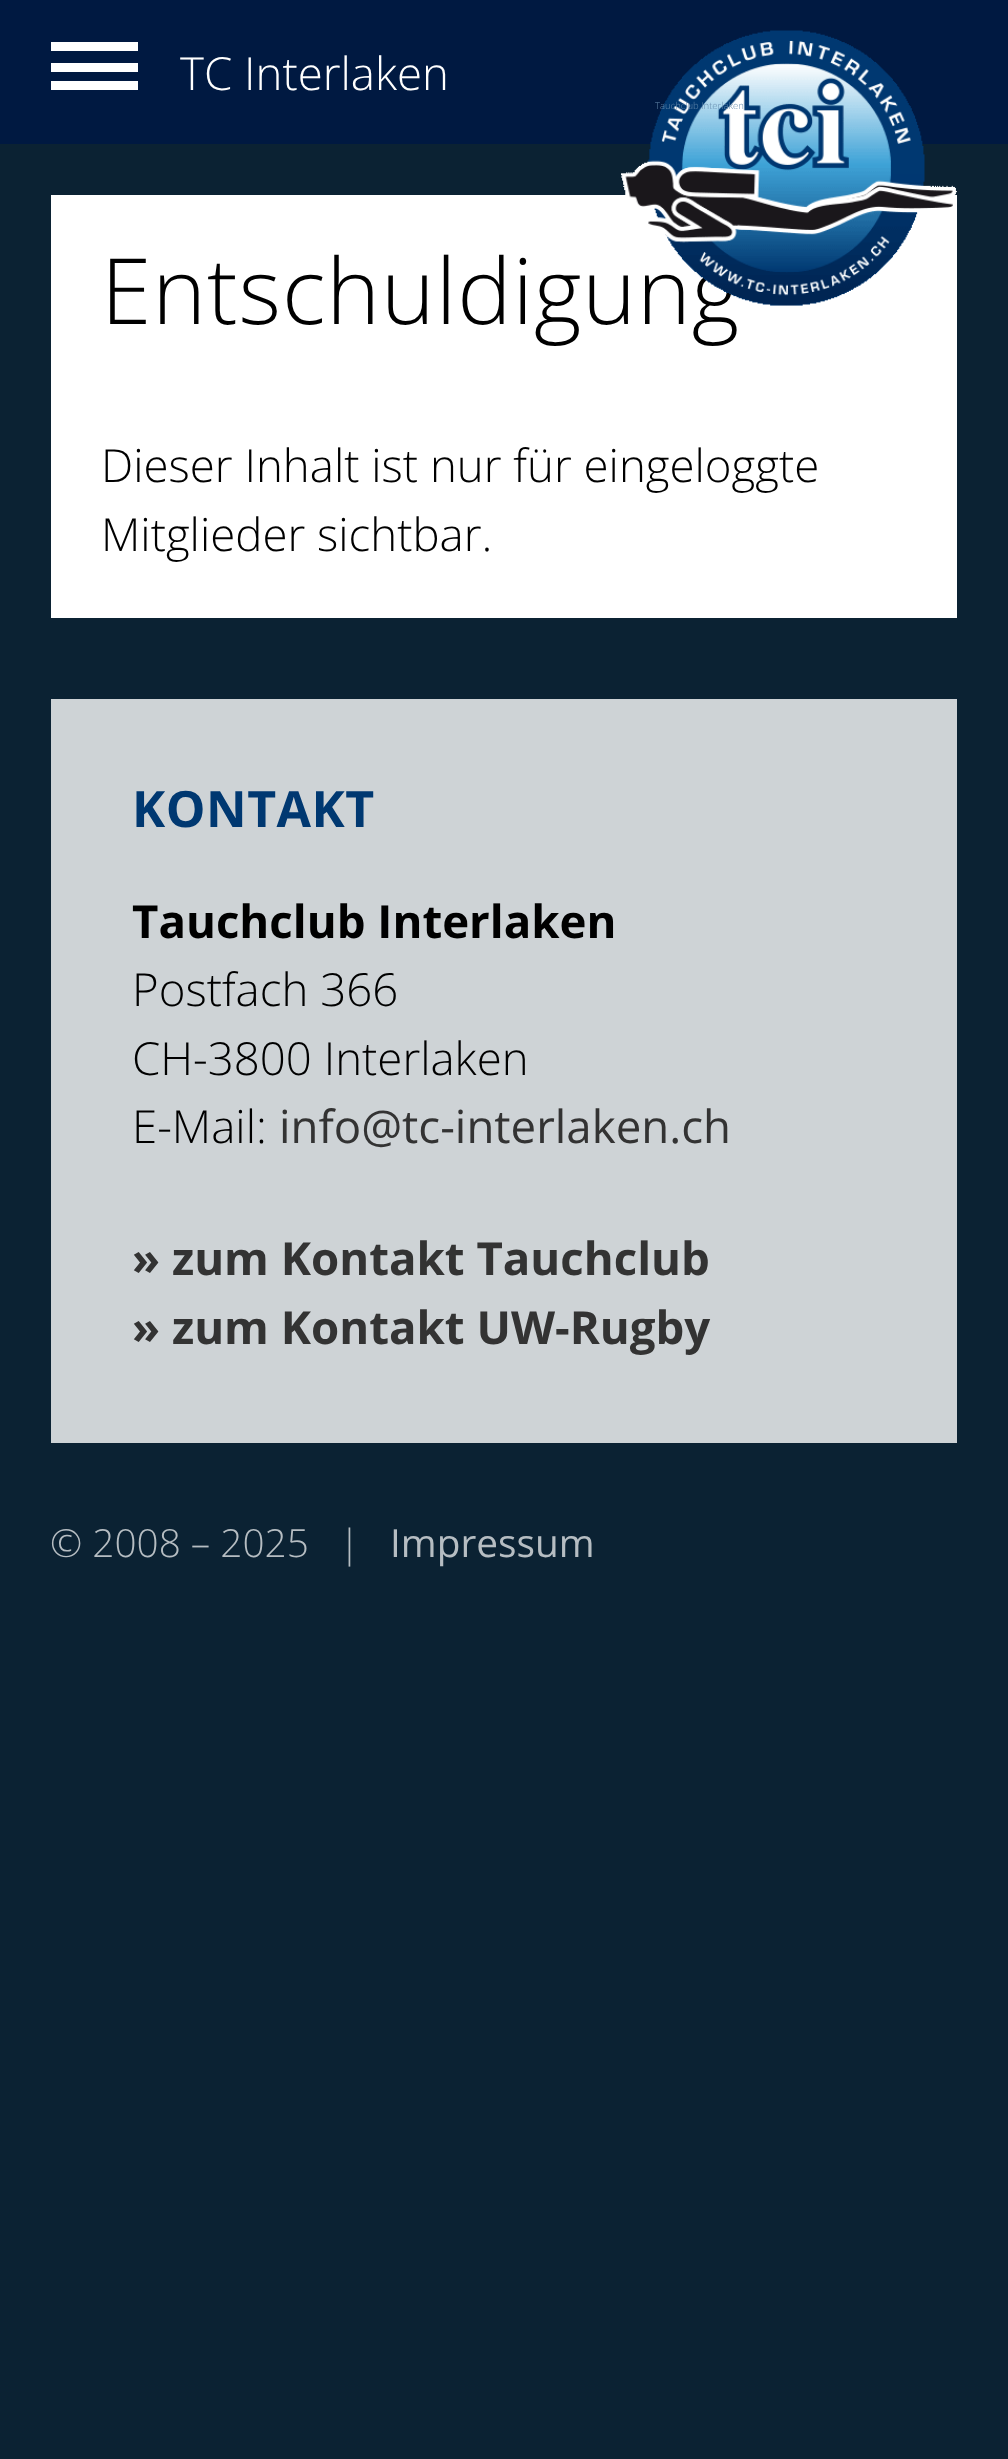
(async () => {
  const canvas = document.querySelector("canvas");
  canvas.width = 1008;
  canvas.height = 2459;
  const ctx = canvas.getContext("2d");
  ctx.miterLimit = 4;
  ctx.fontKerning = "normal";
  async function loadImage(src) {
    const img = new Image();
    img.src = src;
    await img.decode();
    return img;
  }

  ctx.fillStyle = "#0b2233";
  ctx.fillRect(0, 0, 1008, 2459);
  for (const [x, y, w, h, color] of [
    [0, 0, 1008, 144, "#001941"],
    [51, 42, 87, 9, "#ffffff"],
    [51, 63, 87, 9, "#ffffff"],
    [51, 81, 87, 9, "#ffffff"],
    [51, 195, 906, 423, "#ffffff"],
    [51, 699, 906, 744, "#ced3d6"],
  ]) {
    ctx.fillStyle = color;
    ctx.fillRect(x, y, w, h);
  }
  ctx.font = "300 45.6px Open Sans";
  ctx.fillStyle = "#ffffff";
  ctx.fillText("TC Interlaken", 180, 90);
  ctx.letterSpacing = "0.9px";
  ctx.font = "300 91.25px Open Sans";
  ctx.fillStyle = "#000000";
  ctx.fillText("Entschuldigung", 101, 324);
  ctx.drawImage(await loadImage("img/1.png"), 621, 30, 336, 276);
  ctx.letterSpacing = "0px";
  ctx.font = "300 9.5px Open Sans";
  ctx.fillStyle = "#668bad";
  ctx.fillText("Tauchclub Interlaken", 655, 109);
  ctx.font = "300 45.6px Open Sans";
  ctx.fillStyle = "#000000";
  ctx.fillText("Dieser Inhalt ist nur für eingeloggte", 101, 482);
  ctx.fillText("Mitglieder sichtbar.", 101, 551);
  ctx.letterSpacing = "0.5px";
  ctx.font = "bold 50px Open Sans";
  ctx.fillStyle = "#003871";
  ctx.fillText("KONTAKT", 132, 827);
  ctx.letterSpacing = "0px";
  ctx.font = "bold 45.6px Open Sans";
  ctx.fillStyle = "#000000";
  ctx.fillText("Tauchclub Interlaken", 132, 938);
  ctx.font = "300 45.6px Open Sans";
  for (const [text, x, y] of [
    ["Postfach 366", 132, 1006],
    ["CH-3800 Interlaken", 132, 1075],
    ["E-Mail:", 132, 1143],
  ]) {
    ctx.fillText(text, x, y);
  }
  ctx.font = "45.6px Open Sans";
  ctx.fillStyle = "#333333";
  ctx.fillText("info@tc-interlaken.ch", 279, 1143);
  ctx.font = "bold 45.6px Open Sans";
  ctx.fillText("» zum Kontakt Tauchclub", 132, 1275);
  ctx.fillText("» zum Kontakt UW-Rugby", 132, 1344);
  ctx.font = "300 38.75px Open Sans";
  ctx.fillStyle = "#b6bdc2";
  ctx.fillText("© 2008 – 2025   |", 50, 1557);
  ctx.font = "38.75px Open Sans";
  ctx.fillText("Impressum", 390, 1557);
})();
